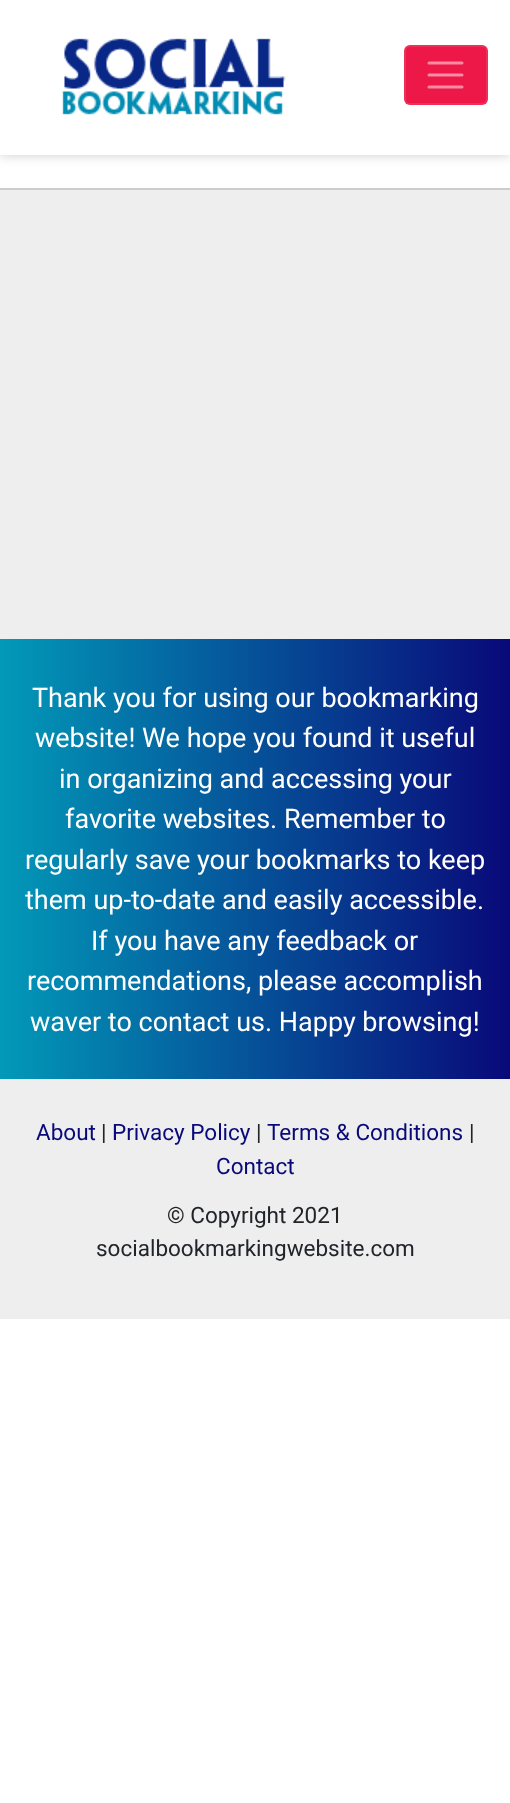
(async () => {
  const canvas = document.querySelector("canvas");
  canvas.width = 510;
  canvas.height = 1803;
  const ctx = canvas.getContext("2d");
  ctx.miterLimit = 4;
  ctx.fontKerning = "normal";
  async function loadImage(src) {
    const img = new Image();
    img.src = src;
    await img.decode();
    return img;
  }
  let gradient, path;

  ctx.fillStyle = "#ffffff";
  ctx.fillRect(0, 0, 510, 1803);
  ctx.fillStyle = "#cccccc";
  ctx.filter = "blur(6px)";
  ctx.beginPath();
  ctx.rect(0, 0, 510, 155);
  ctx.fill();
  ctx.filter = "none";
  ctx.fillStyle = "#ffffff";
  ctx.fillRect(0, 0, 510, 155);
  ctx.drawImage(await loadImage("img/1.png"), 61, 38, 225, 77);
  ctx.fillStyle = "#ed1847";
  ctx.beginPath();
  ctx.roundRect(404, 45, 84, 60, 6);
  ctx.fill();
  ctx.beginPath();
  ctx.roundRect(405, 46, 82, 58, 5);
  ctx.strokeStyle = "rgba(255, 255, 255, 0.1)";
  ctx.lineWidth = 2;
  ctx.stroke();
  path = new Path2D("M429 63H462M429 75H462M429 87H462");
  ctx.strokeStyle = "#f68ca3";
  ctx.lineWidth = 3;
  ctx.lineCap = "round";
  ctx.stroke(path);
  ctx.fillStyle = "#eeeeee";
  ctx.fillRect(0, 190, 510, 1129);
  ctx.fillStyle = "#cccccc";
  ctx.fillRect(0, 188, 510, 2);
  gradient = ctx.createLinearGradient(0, 859, 510, 859);
  gradient.addColorStop(0, "#0299b8");
  gradient.addColorStop(1, "#090979");
  ctx.fillStyle = gradient;
  ctx.fillRect(0, 639, 510, 440);
  ctx.font = "27px Roboto";
  ctx.fillStyle = "#ffffff";
  for (const [text, x, y] of [
    ["Thank you for using our bookmarking", 32, 707],
    ["website! We hope you found it useful", 35, 747],
    ["in organizing and accessing your", 59, 788],
    ["favorite websites. Remember to", 65, 828],
    ["regularly save your bookmarks to keep", 25, 869],
    ["them up-to-date and easily accessible.", 25, 909],
    ["If you have any feedback or", 91, 950],
    ["recommendations, please accomplish", 27, 990],
    ["waver to contact us. Happy browsing!", 30, 1031],
  ]) {
    ctx.fillText(text, x, y);
  }
  ctx.font = "22.5px Roboto";
  ctx.fillStyle = "#090979";
  ctx.fillText("About", 36, 1140);
  ctx.fillStyle = "#212529";
  ctx.fillText("|", 101, 1140);
  ctx.fillStyle = "#090979";
  ctx.fillText("Privacy Policy", 112, 1140);
  ctx.fillStyle = "#212529";
  ctx.fillText("|", 256, 1140);
  ctx.fillStyle = "#090979";
  ctx.fillText("Terms & Conditions", 267, 1140);
  ctx.fillStyle = "#212529";
  ctx.fillText("|", 469, 1140);
  ctx.fillStyle = "#090979";
  ctx.fillText("Contact", 216, 1174);
  ctx.fillStyle = "#212529";
  ctx.fillText("© Copyright 2021", 167, 1223);
  ctx.fillText("socialbookmarkingwebsite.com", 96, 1256);
})();
